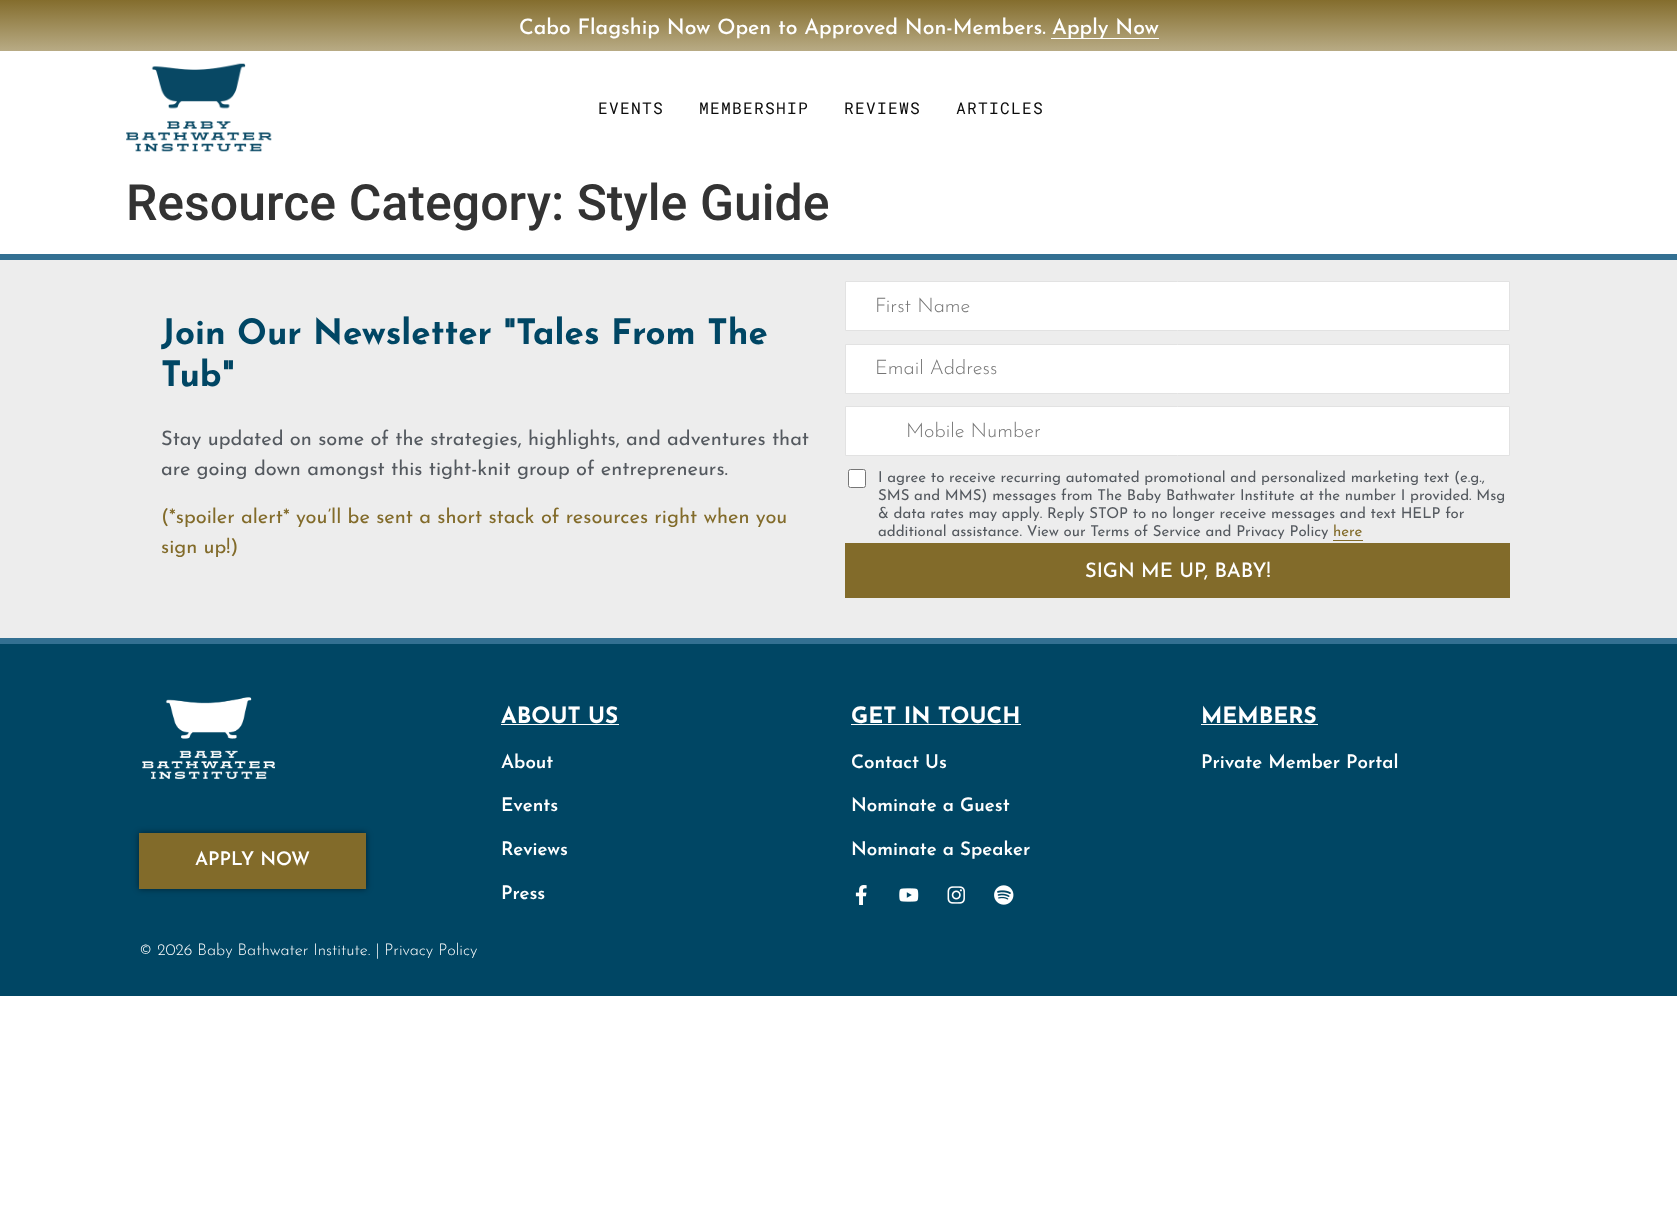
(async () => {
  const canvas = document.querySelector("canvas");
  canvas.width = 1677;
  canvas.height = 1210;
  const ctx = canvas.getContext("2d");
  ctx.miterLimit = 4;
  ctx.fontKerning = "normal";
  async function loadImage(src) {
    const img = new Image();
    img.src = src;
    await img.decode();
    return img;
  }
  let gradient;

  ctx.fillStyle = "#ffffff";
  ctx.fillRect(0, 0, 1677, 1210);
  gradient = ctx.createLinearGradient(839, 0, 839, 51);
  gradient.addColorStop(0, "#846d2d");
  gradient.addColorStop(1, "#b8ab85");
  ctx.fillStyle = gradient;
  ctx.fillRect(0, 0, 1677, 51);
  ctx.fillStyle = "#ffffff";
  ctx.fillRect(1051, 38, 108, 1);
  ctx.drawImage(await loadImage("img/1.png"), 126, 63, 146, 89);
  ctx.fillStyle = "#ededed";
  ctx.fillRect(0, 260, 1677, 378);
  ctx.fillStyle = "#337092";
  ctx.fillRect(0, 254, 1677, 6);
  ctx.fillStyle = "#ffffff";
  ctx.beginPath();
  ctx.rect(845.5, 281.5, 664, 49);
  ctx.fill();
  ctx.strokeStyle = "#e2e2e2";
  ctx.stroke();
  ctx.beginPath();
  ctx.rect(845.5, 344.5, 664, 49);
  ctx.fill();
  ctx.stroke();
  ctx.beginPath();
  ctx.rect(845.5, 406.5, 664, 49);
  ctx.fill();
  ctx.stroke();
  ctx.beginPath();
  ctx.roundRect(848.5, 469.5, 17, 18, 2);
  ctx.fill();
  ctx.strokeStyle = "#767676";
  ctx.stroke();
  for (const [x, y, w, h, color] of [
    [1333, 540, 30, 1, "#826b2a"],
    [845, 543, 665, 55, "#826b2a"],
    [0, 644, 1677, 352, "#004664"],
    [0, 638, 1677, 6, "#337092"],
    [501, 724, 118, 1, "#ffffff"],
    [851, 724, 170, 1, "#ffffff"],
  ]) {
    ctx.fillStyle = color;
    ctx.fillRect(x, y, w, h);
  }
  ctx.drawImage(await loadImage("img/2.png"), 855, 885, 12, 20);
  ctx.drawImage(await loadImage("img/3.png"), 899, 888, 20, 14);
  ctx.drawImage(await loadImage("img/4.png"), 947, 886, 18, 18);
  ctx.drawImage(await loadImage("img/5.png"), 994, 885, 20, 20);
  ctx.fillRect(1201, 724, 117, 1);
  ctx.drawImage(await loadImage("img/6.png"), 142, 697, 133, 82);
  ctx.fillStyle = "rgba(0, 0, 0, 0.5)";
  ctx.filter = "blur(3px)";
  ctx.beginPath();
  ctx.rect(139, 833, 227, 56);
  ctx.fill();
  ctx.filter = "none";
  ctx.fillStyle = "#826b2a";
  ctx.fillRect(139, 833, 227, 56);
  ctx.font = "500 21.25px Josefin Sans";
  ctx.fillStyle = "#ffffff";
  ctx.fillText("Cabo Flagship Now Open to Approved Non-Members.", 519, 34);
  ctx.fillText("Apply Now", 1052, 34);
  ctx.letterSpacing = "1.25px";
  ctx.font = "16.25px Roboto Mono";
  ctx.fillStyle = "#0c0c0c";
  for (const [text, x, y] of [
    ["EVENTS", 598, 114],
    ["MEMBERSHIP", 699, 114],
    ["REVIEWS", 844, 114],
    ["ARTICLES", 956, 114],
  ]) {
    ctx.fillText(text, x, y);
  }
  ctx.letterSpacing = "0px";
  ctx.font = "500 50px Roboto";
  ctx.fillStyle = "#333333";
  ctx.fillText("Resource Category: Style Guide", 126, 220);
  ctx.font = "bold 35px Josefin Sans";
  ctx.fillStyle = "#004664";
  ctx.fillText("Join Our Newsletter \"Tales From The", 161, 344);
  ctx.fillText("Tub\"", 161, 386);
  ctx.font = "20px Josefin Sans";
  ctx.fillStyle = "#54595f";
  ctx.fillText("Stay updated on some of the strategies, highlights, and adventures that", 161, 445);
  ctx.fillText("are going down amongst this tight-knit group of entrepreneurs.", 161, 475);
  ctx.fillStyle = "#826b2a";
  ctx.fillText("(*spoiler alert* you’ll be sent a short stack of resources right when you", 161, 523);
  ctx.fillText("sign up!)", 161, 553);
  ctx.font = "300 20px Josefin Sans";
  ctx.fillStyle = "#757575";
  ctx.fillText("First Name", 875, 312);
  ctx.save();
  ctx.beginPath();
  ctx.rect(846, 359, 638, 20);
  ctx.clip();
  ctx.fillText("Email Address", 875, 374);
  ctx.restore();
  ctx.fillText("Mobile Number", 906, 437);
  ctx.font = "15px Josefin Sans";
  ctx.fillStyle = "#54595f";
  for (const [text, x, y] of [
    ["I agree to receive recurring automated promotional and personalized marketing text (e.g.,", 878, 482],
    ["SMS and MMS) messages from The Baby Bathwater Institute at the number I provided. Msg", 878, 500],
    ["& data rates may apply. Reply STOP to no longer receive messages and text HELP for", 878, 518],
    ["additional assistance. View our Terms of Service and Privacy Policy", 878, 536],
  ]) {
    ctx.fillText(text, x, y);
  }
  ctx.fillStyle = "#826b2a";
  ctx.fillText("here", 1333, 536);
  ctx.font = "500 20px Josefin Sans";
  ctx.fillStyle = "#ffffff";
  ctx.fillText("SIGN ME UP, BABY!", 1085, 577);
  ctx.font = "bold 22.5px Josefin Sans";
  ctx.fillText("ABOUT US", 501, 723);
  ctx.font = "600 18.75px Josefin Sans";
  for (const [text, x, y] of [
    ["About", 501, 768],
    ["Events", 501, 811],
    ["Reviews", 501, 855],
    ["Press", 501, 899],
  ]) {
    ctx.fillText(text, x, y);
  }
  ctx.font = "bold 22.5px Josefin Sans";
  ctx.fillText("GET IN TOUCH", 851, 723);
  ctx.font = "600 18.75px Josefin Sans";
  for (const [text, x, y] of [
    ["Contact Us", 851, 768],
    ["Nominate a Guest", 851, 811],
    ["Nominate a Speaker", 851, 855],
  ]) {
    ctx.fillText(text, x, y);
  }
  ctx.font = "bold 22.5px Josefin Sans";
  ctx.fillText("MEMBERS", 1201, 723);
  ctx.font = "600 18.75px Josefin Sans";
  ctx.fillText("Private Member Portal", 1201, 768);
  ctx.fillText("APPLY NOW", 195, 865);
  ctx.font = "300 16.25px Josefin Sans";
  ctx.fillText("© 2026 Baby Bathwater Institute. | Privacy Policy", 139, 955);
})();
